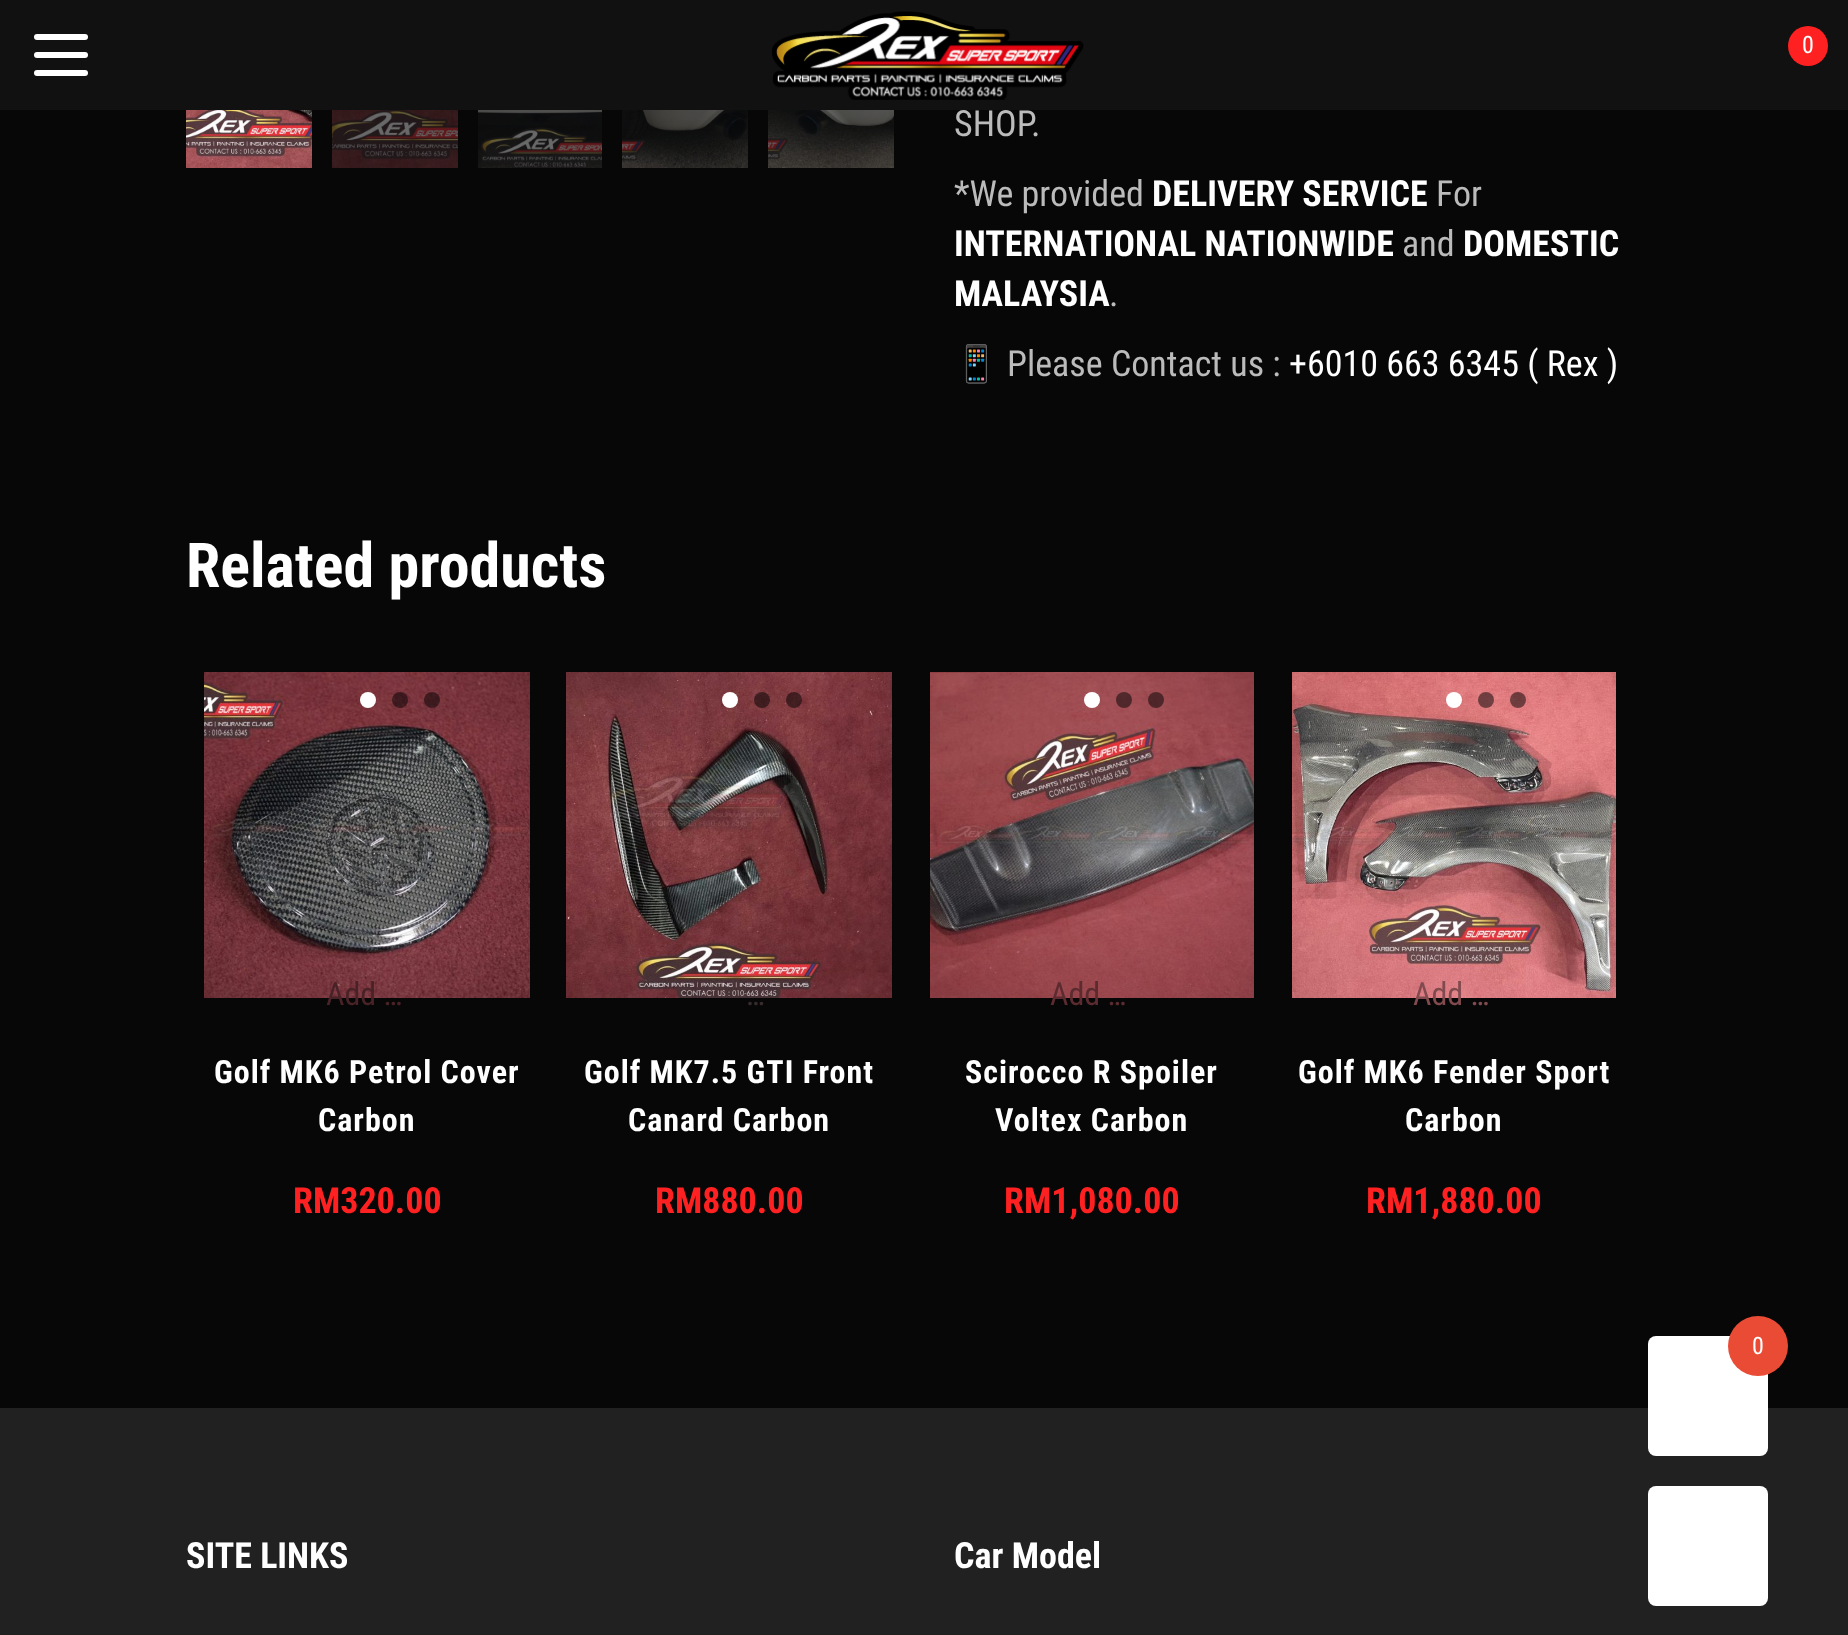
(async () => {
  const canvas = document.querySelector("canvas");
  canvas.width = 1848;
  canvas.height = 1635;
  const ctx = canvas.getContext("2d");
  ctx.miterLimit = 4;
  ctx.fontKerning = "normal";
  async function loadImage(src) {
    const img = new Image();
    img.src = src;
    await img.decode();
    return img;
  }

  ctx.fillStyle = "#070707";
  ctx.fillRect(0, 0, 1848, 1635);
  ctx.fillStyle = "#111111";
  ctx.fillRect(0, 0, 1848, 110);
  ctx.fillStyle = "#ffffff";
  ctx.beginPath();
  ctx.roundRect(34, 52, 54, 6, 3);
  ctx.fill();
  ctx.beginPath();
  ctx.roundRect(34, 34, 54, 6, 3);
  ctx.fill();
  ctx.beginPath();
  ctx.roundRect(34, 70, 54, 6, 3);
  ctx.fill();
  ctx.drawImage(await loadImage("img/1.png"), 772, 11, 312, 89);
  ctx.fillStyle = "#ff2121";
  ctx.beginPath();
  ctx.arc(1808, 46, 20, 0, Math.PI * 2);
  ctx.fill();
  ctx.drawImage(await loadImage("img/2.png"), 186, 110, 126, 58);
  ctx.drawImage(await loadImage("img/3.png"), 332, 110, 126, 58);
  ctx.drawImage(await loadImage("img/4.png"), 478, 110, 124, 58);
  ctx.drawImage(await loadImage("img/5.png"), 622, 110, 126, 58);
  ctx.drawImage(await loadImage("img/6.png"), 768, 110, 126, 58);
  ctx.drawImage(await loadImage("img/7.png"), 204, 672, 326, 326);
  ctx.fillStyle = "#ffffff";
  ctx.beginPath();
  ctx.arc(368, 700, 8, 0, Math.PI * 2);
  ctx.fill();
  ctx.fillStyle = "rgba(0, 0, 0, 0.5)";
  ctx.beginPath();
  ctx.arc(400, 700, 8, 0, Math.PI * 2);
  ctx.fill();
  ctx.beginPath();
  ctx.arc(432, 700, 8, 0, Math.PI * 2);
  ctx.fill();
  ctx.drawImage(await loadImage("img/8.png"), 566, 672, 326, 326);
  ctx.fillStyle = "#ffffff";
  ctx.beginPath();
  ctx.arc(730, 700, 8, 0, Math.PI * 2);
  ctx.fill();
  ctx.fillStyle = "rgba(0, 0, 0, 0.5)";
  ctx.beginPath();
  ctx.arc(762, 700, 8, 0, Math.PI * 2);
  ctx.fill();
  ctx.beginPath();
  ctx.arc(794, 700, 8, 0, Math.PI * 2);
  ctx.fill();
  ctx.drawImage(await loadImage("img/9.png"), 930, 672, 324, 326);
  ctx.fillStyle = "#ffffff";
  ctx.beginPath();
  ctx.arc(1092, 700, 8, 0, Math.PI * 2);
  ctx.fill();
  ctx.fillStyle = "rgba(0, 0, 0, 0.5)";
  ctx.beginPath();
  ctx.arc(1124, 700, 8, 0, Math.PI * 2);
  ctx.fill();
  ctx.beginPath();
  ctx.arc(1156, 700, 8, 0, Math.PI * 2);
  ctx.fill();
  ctx.drawImage(await loadImage("img/10.png"), 1292, 672, 324, 326);
  ctx.fillStyle = "#ffffff";
  ctx.beginPath();
  ctx.arc(1454, 700, 8, 0, Math.PI * 2);
  ctx.fill();
  ctx.fillStyle = "rgba(0, 0, 0, 0.5)";
  ctx.beginPath();
  ctx.arc(1486, 700, 8, 0, Math.PI * 2);
  ctx.fill();
  ctx.beginPath();
  ctx.arc(1518, 700, 8, 0, Math.PI * 2);
  ctx.fill();
  ctx.fillStyle = "#212121";
  ctx.fillRect(0, 1408, 1848, 227);
  ctx.fillStyle = "#ffffff";
  ctx.beginPath();
  ctx.roundRect(1648, 1336, 120, 120, 8);
  ctx.fill();
  ctx.fillStyle = "#e94b35";
  ctx.beginPath();
  ctx.arc(1758, 1346, 30, 0, Math.PI * 2);
  ctx.fill();
  ctx.fillStyle = "#ffffff";
  ctx.beginPath();
  ctx.roundRect(1648, 1486, 120, 120, 8);
  ctx.fill();
  ctx.font = "24px Roboto Condensed";
  ctx.fillText("0", 1802, 53);
  ctx.font = "36px Roboto Condensed";
  ctx.fillStyle = "#bbbbbb";
  ctx.fillText("SHOP.", 954, 136);
  ctx.fillText("*We provided", 954, 206);
  ctx.font = "bold 36px Roboto Condensed";
  ctx.fillStyle = "#ffffff";
  ctx.fillText("DELIVERY SERVICE", 1152, 206);
  ctx.font = "36px Roboto Condensed";
  ctx.fillStyle = "#bbbbbb";
  ctx.fillText("For", 1436, 206);
  ctx.font = "bold 36px Roboto Condensed";
  ctx.fillStyle = "#ffffff";
  ctx.fillText("INTERNATIONAL NATIONWIDE", 954, 256);
  ctx.font = "36px Roboto Condensed";
  ctx.fillStyle = "#bbbbbb";
  ctx.fillText("and", 1402, 256);
  ctx.font = "bold 36px Roboto Condensed";
  ctx.fillStyle = "#ffffff";
  ctx.fillText("DOMESTIC", 1463, 256);
  ctx.fillText("MALAYSIA", 954, 306);
  ctx.font = "36px Roboto Condensed";
  ctx.fillStyle = "#bbbbbb";
  ctx.fillText(".", 1109, 306);
  ctx.font = "36px Noto Color Emoji";
  ctx.fillText("📱", 954, 376);
  ctx.font = "36px Roboto Condensed";
  ctx.fillText("Please Contact us :", 1007, 376);
  ctx.fillStyle = "#ffffff";
  ctx.fillText("+6010 663 6345 ( Rex )", 1289, 376);
  ctx.font = "bold 62px Roboto Condensed";
  ctx.fillText("Related products", 186, 587);
  ctx.font = "32px Roboto Condensed";
  ctx.fillStyle = "#482227";
  ctx.fillText("Add …", 326, 1005);
  ctx.letterSpacing = "1px";
  ctx.font = "bold 32px Roboto Condensed";
  ctx.fillStyle = "#ffffff";
  ctx.fillText("Golf MK6 Petrol Cover", 214, 1083);
  ctx.fillText("Carbon", 318, 1131);
  ctx.letterSpacing = "0px";
  ctx.font = "bold 36px Roboto Condensed";
  ctx.fillStyle = "#ff2121";
  ctx.fillText("RM320.00", 293, 1213);
  ctx.font = "32px Roboto Condensed";
  ctx.fillStyle = "#372b2d";
  ctx.fillText("…", 746, 1005);
  ctx.letterSpacing = "1px";
  ctx.font = "bold 32px Roboto Condensed";
  ctx.fillStyle = "#ffffff";
  ctx.fillText("Golf MK7.5 GTI Front", 584, 1083);
  ctx.fillText("Canard Carbon", 628, 1131);
  ctx.letterSpacing = "0px";
  ctx.font = "bold 36px Roboto Condensed";
  ctx.fillStyle = "#ff2121";
  ctx.fillText("RM880.00", 655, 1213);
  ctx.font = "32px Roboto Condensed";
  ctx.fillStyle = "#5b2b2f";
  ctx.fillText("Add …", 1050, 1005);
  ctx.letterSpacing = "1px";
  ctx.font = "bold 32px Roboto Condensed";
  ctx.fillStyle = "#ffffff";
  ctx.fillText("Scirocco R Spoiler", 965, 1083);
  ctx.fillText("Voltex Carbon", 995, 1131);
  ctx.letterSpacing = "0px";
  ctx.font = "bold 36px Roboto Condensed";
  ctx.fillStyle = "#ff2121";
  ctx.fillText("RM1,080.00", 1004, 1213);
  ctx.font = "32px Roboto Condensed";
  ctx.fillStyle = "#804a4e";
  ctx.fillText("Add …", 1413, 1005);
  ctx.letterSpacing = "1px";
  ctx.font = "bold 32px Roboto Condensed";
  ctx.fillStyle = "#ffffff";
  ctx.fillText("Golf MK6 Fender Sport", 1298, 1083);
  ctx.fillText("Carbon", 1405, 1131);
  ctx.letterSpacing = "0px";
  ctx.font = "bold 36px Roboto Condensed";
  ctx.fillStyle = "#ff2121";
  ctx.fillText("RM1,880.00", 1366, 1213);
  ctx.fillStyle = "#ffffff";
  ctx.fillText("SITE LINKS", 186, 1568);
  ctx.fillText("Car Model", 954, 1568);
  ctx.font = "24px Roboto Condensed";
  ctx.fillText("0", 1752, 1354);
})();
